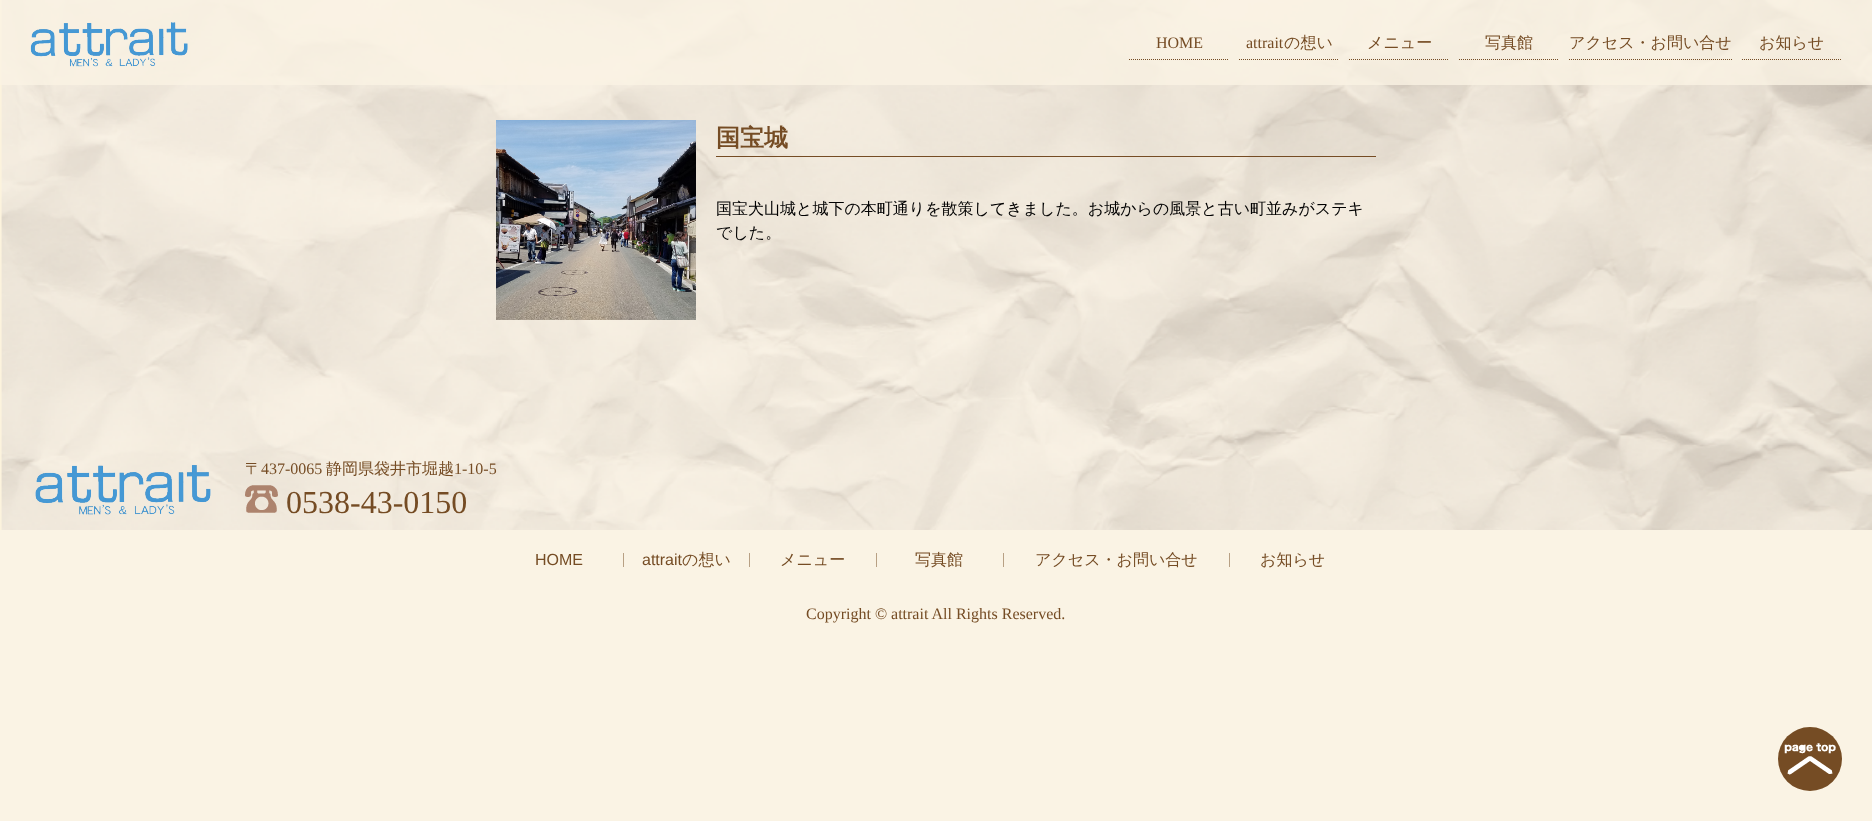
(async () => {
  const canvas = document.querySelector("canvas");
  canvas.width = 1872;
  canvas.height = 821;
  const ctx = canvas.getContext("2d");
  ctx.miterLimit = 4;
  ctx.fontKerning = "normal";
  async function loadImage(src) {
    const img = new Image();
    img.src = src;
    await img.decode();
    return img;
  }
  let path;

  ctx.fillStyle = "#faf3e4";
  ctx.fillRect(0, 0, 1872, 821);
  ctx.drawImage(await loadImage("img/2.png"), 0, 0, 1872, 530);
  ctx.fillStyle = "rgba(250, 243, 228, 0.8)";
  ctx.fillRect(0, 0, 1872, 85);
  ctx.drawImage(await loadImage("img/1.png"), 30, 22, 158, 45);
  path = new Path2D("M1129 59.5H1229");
  ctx.strokeStyle = "#754c24";
  ctx.setLineDash([1, 1]);
  ctx.stroke(path);
  path = new Path2D("M1239 59.5H1339");
  ctx.stroke(path);
  path = new Path2D("M1349 59.5H1449");
  ctx.stroke(path);
  path = new Path2D("M1459 59.5H1559");
  ctx.stroke(path);
  path = new Path2D("M1569 59.5H1732");
  ctx.stroke(path);
  path = new Path2D("M1742 59.5H1842");
  ctx.stroke(path);
  ctx.drawImage(await loadImage("img/3.png"), 496, 120, 200, 200);
  ctx.fillStyle = "#754c24";
  ctx.fillRect(716, 156, 660, 1);
  ctx.drawImage(await loadImage("img/4.png"), 35, 465, 176, 50);
  ctx.drawImage(await loadImage("img/5.png"), 245, 485, 33, 28);
  for (const [x, y, w, h, color] of [
    [623, 553, 1, 14, "#b8a084"],
    [749, 553, 1, 14, "#b8a084"],
    [876, 553, 1, 14, "#b8a084"],
    [1003, 553, 1, 14, "#b8a084"],
    [1229, 553, 1, 14, "#b8a084"],
  ]) {
    ctx.fillStyle = color;
    ctx.fillRect(x, y, w, h);
  }
  ctx.fillStyle = "#754c24";
  ctx.beginPath();
  ctx.arc(1810, 759, 32, 0, Math.PI * 2);
  ctx.fill();
  ctx.drawImage(await loadImage("img/6.png"), 1784, 743, 52, 32);
  ctx.font = "16px Liberation Serif";
  ctx.fillText("HOME", 1156, 48);
  ctx.fillText("attrait", 1246, 48);
  ctx.font = "500 16px WenQuanYi Zen Hei";
  for (const [text, x, y] of [
    ["の想い", 1284, 48],
    ["メニュー", 1367, 48],
    ["写真館", 1485, 48],
    ["アクセス・お問い合せ", 1569, 48],
    ["お知らせ", 1759, 48],
  ]) {
    ctx.fillText(text, x, y);
  }
  ctx.font = "bold 24px WenQuanYi Zen Hei";
  ctx.fillText("国宝城", 716, 146);
  ctx.font = "500 16px WenQuanYi Zen Hei";
  ctx.fillStyle = "#000000";
  ctx.fillText("国宝犬山城と城下の本町通りを散策してきました。お城からの風景と古い町並みがステキ", 716, 214);
  ctx.fillText("でした。", 716, 238);
  ctx.fillStyle = "#754c24";
  ctx.fillText("〒", 245, 474);
  ctx.font = "16px Liberation Serif";
  ctx.fillText("437-0065", 261, 474);
  ctx.font = "500 16px WenQuanYi Zen Hei";
  ctx.fillText("静岡県袋井市堀越", 326, 474);
  ctx.font = "16px Liberation Serif";
  ctx.fillText("1-10-5", 454, 474);
  ctx.font = "32px Liberation Serif";
  ctx.fillText("0538-43-0150", 286, 513);
  ctx.font = "16px Liberation Sans";
  ctx.fillText("HOME", 535, 565);
  ctx.fillText("attrait", 642, 565);
  ctx.font = "500 16px WenQuanYi Zen Hei";
  for (const [text, x, y] of [
    ["の想い", 682, 565],
    ["メニュー", 780, 565],
    ["写真館", 915, 565],
    ["アクセス・お問い合せ", 1035, 565],
    ["お知らせ", 1260, 565],
  ]) {
    ctx.fillText(text, x, y);
  }
  ctx.font = "16px Liberation Serif";
  ctx.fillText("Copyright © attrait All Rights Reserved.", 806, 619);
})();
